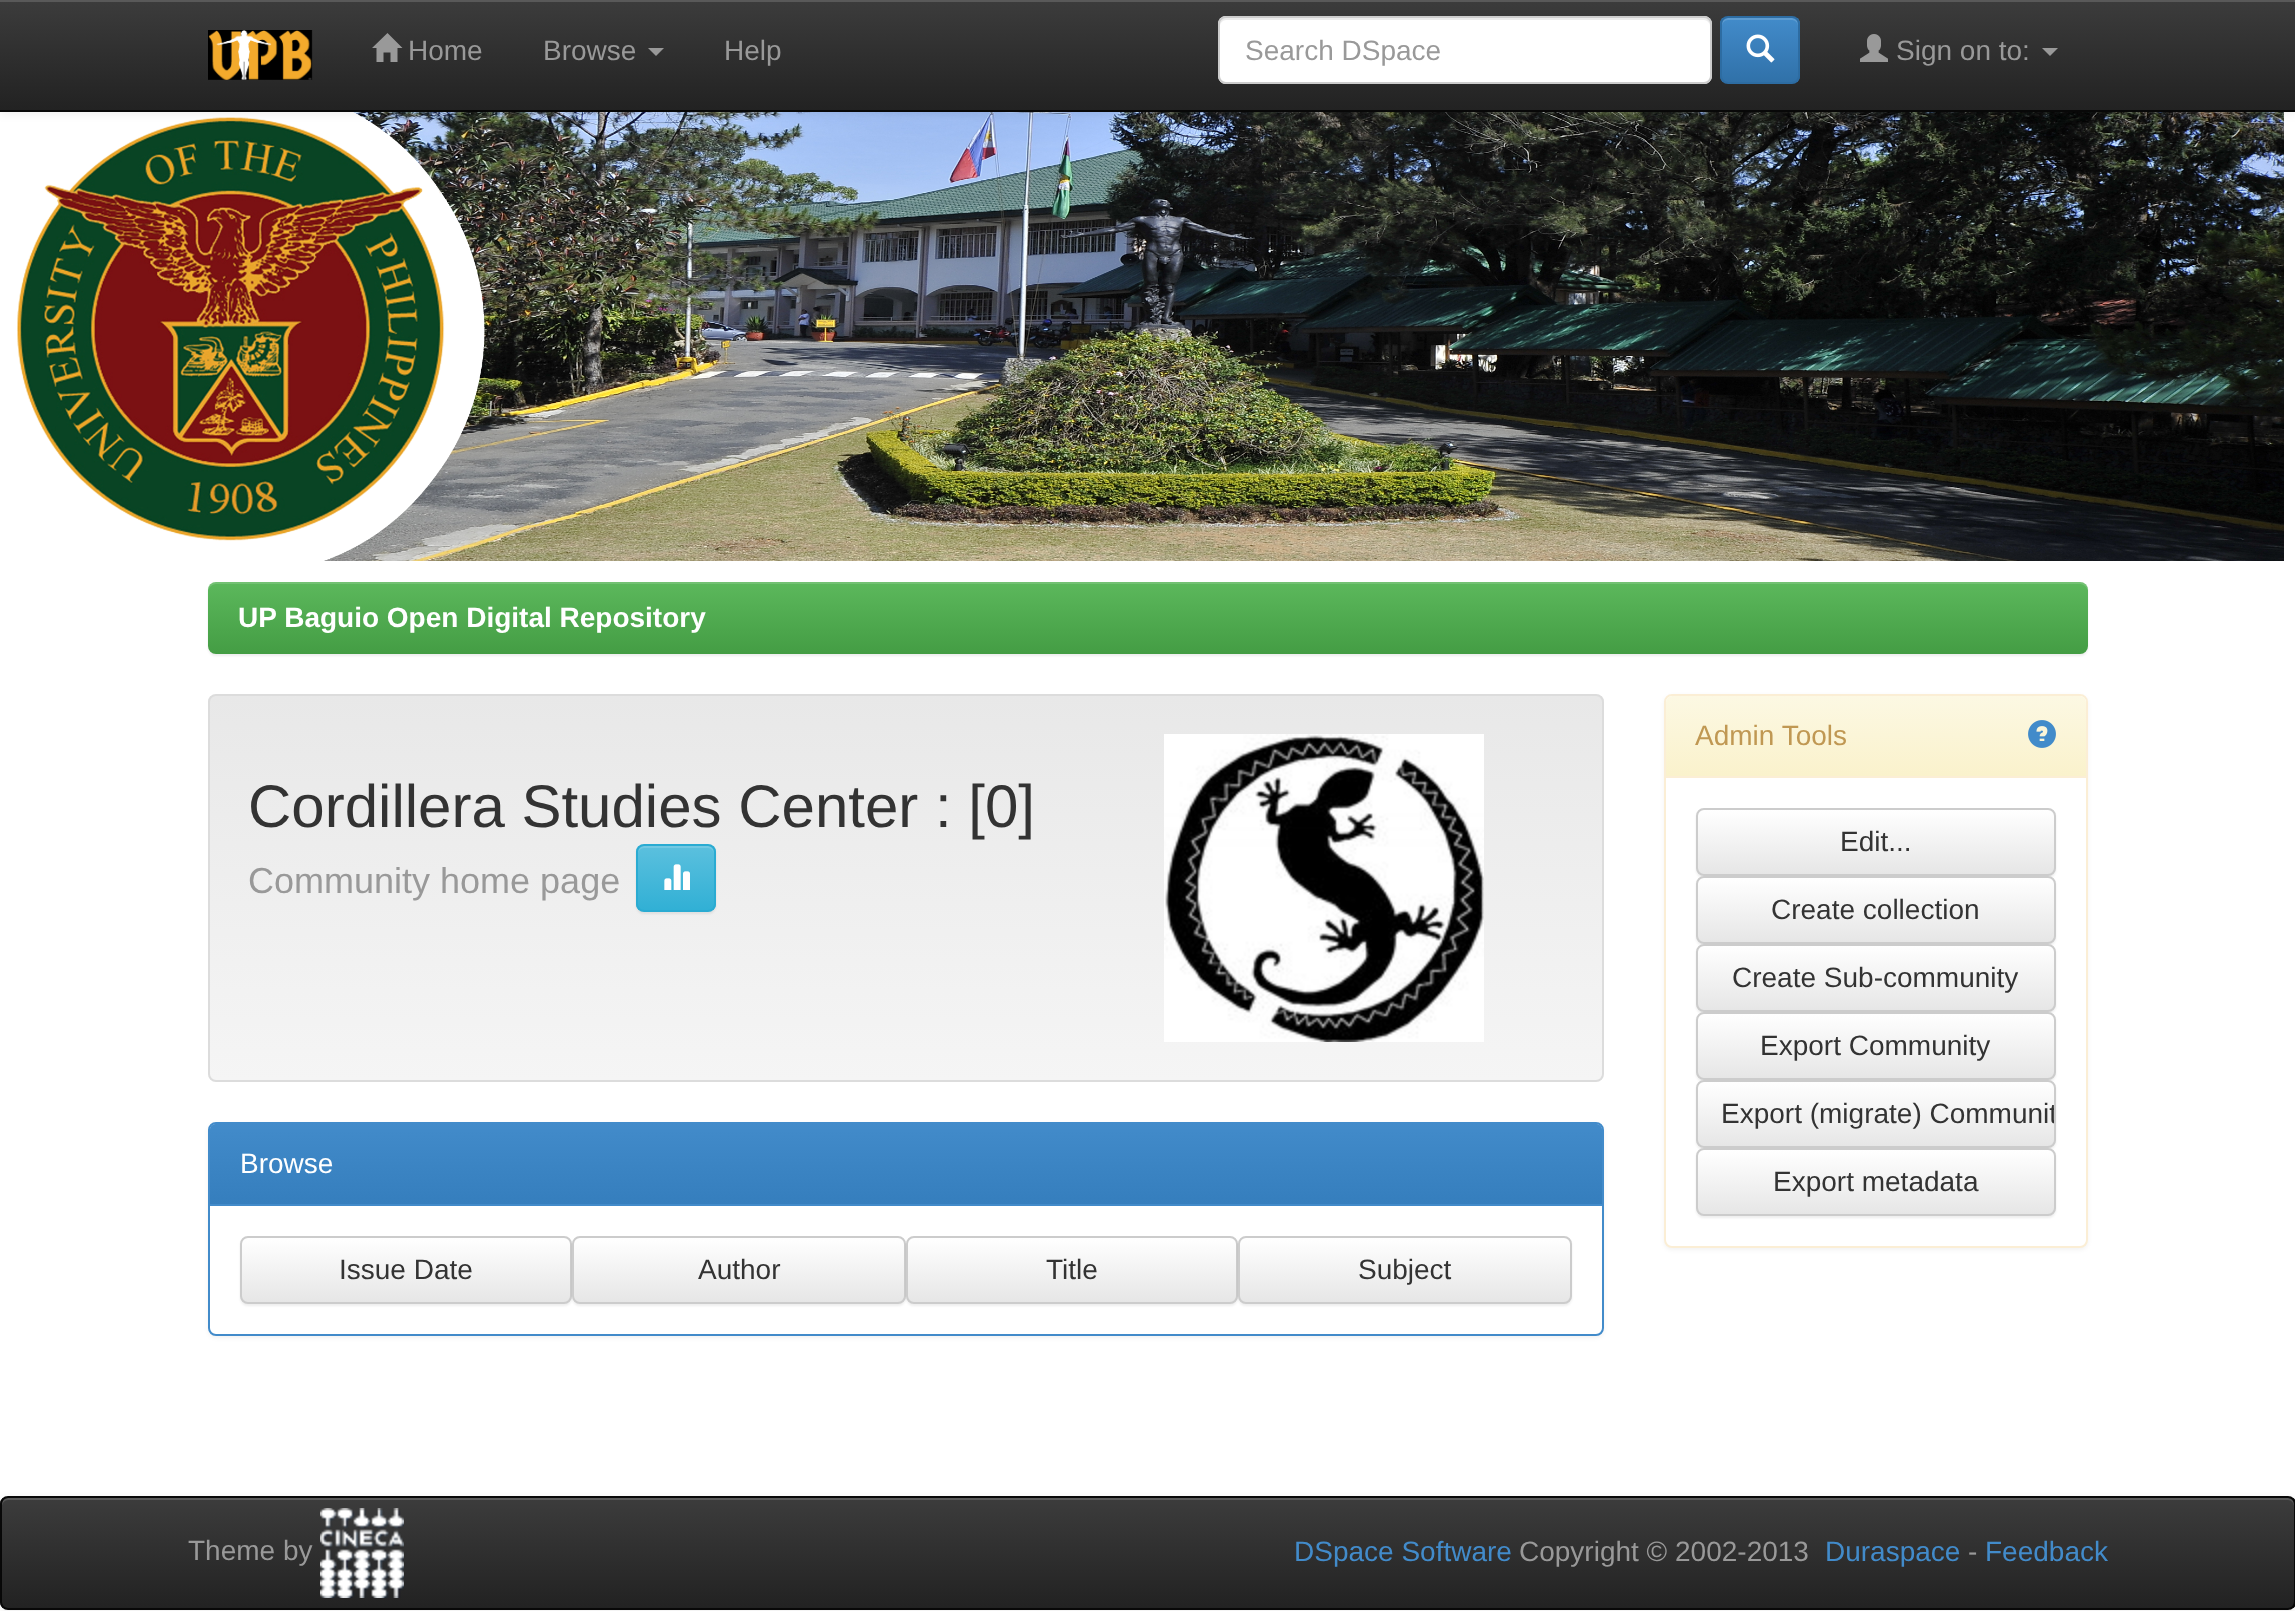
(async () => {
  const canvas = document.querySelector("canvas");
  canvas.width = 2295;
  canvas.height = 1611;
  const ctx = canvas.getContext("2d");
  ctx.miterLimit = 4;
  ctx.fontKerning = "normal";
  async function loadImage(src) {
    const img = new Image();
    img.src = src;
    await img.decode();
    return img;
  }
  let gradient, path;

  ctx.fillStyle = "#ffffff";
  ctx.fillRect(0, 0, 2295, 1611);
  ctx.drawImage(await loadImage("img/4.png"), 17, 112, 2267, 449);
  ctx.fillStyle = "rgba(0, 0, 0, 0.07)";
  ctx.filter = "blur(5px)";
  ctx.beginPath();
  ctx.rect(0, 2, 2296, 112);
  ctx.fill();
  ctx.filter = "none";
  gradient = ctx.createLinearGradient(1148, 0, 1148, 110);
  gradient.addColorStop(0, "#3c3c3c");
  gradient.addColorStop(1, "#222222");
  ctx.fillStyle = gradient;
  ctx.fillRect(0, 2, 2295, 108);
  ctx.fillStyle = "#595959";
  ctx.fillRect(0, 0, 2295, 2);
  ctx.fillStyle = "#080808";
  ctx.fillRect(0, 110, 2295, 2);
  ctx.drawImage(await loadImage("img/1.png"), 208, 30, 105, 50);
  ctx.fillStyle = "#999999";
  path = new Path2D("M402.5 48H397.5V62H390.5V52.5H383.5V62H376.5V48H372L387.5 33Z");
  ctx.fill(path);
  path = new Path2D("M648 48H664L656 56Z");
  ctx.fill(path);
  ctx.fillStyle = "#ffffff";
  ctx.beginPath();
  ctx.roundRect(1218, 16, 494, 68, 8);
  ctx.fill();
  ctx.fillStyle = "#ececec";
  path = new Path2D("M1226 20H1704C1707 20 1710 23 1710 26C1710 22 1709 18 1704 18H1226C1221 18 1220 22 1220 26C1220 23 1223 20 1226 20Z");
  ctx.fill(path);
  ctx.beginPath();
  ctx.roundRect(1219, 17, 492, 66, 7);
  ctx.strokeStyle = "#cccccc";
  ctx.lineWidth = 2;
  ctx.stroke();
  ctx.save();
  ctx.beginPath();
  ctx.roundRect(1720, 16, 80, 68, 8);
  ctx.clip();
  gradient = ctx.createLinearGradient(1760, 18, 1760, 82);
  gradient.addColorStop(0, "#428bca");
  gradient.addColorStop(1, "#3071a9");
  ctx.fillStyle = gradient;
  ctx.fillRect(1720, 18, 80, 64);
  ctx.restore();
  ctx.fillStyle = "#5e9cd1";
  path = new Path2D("M1728 20H1792C1795 20 1798 23 1798 26C1798 16 1790 18 1781 18H1739C1730 18 1722 16 1722 26C1722 23 1725 20 1728 20Z");
  ctx.fill(path);
  ctx.beginPath();
  ctx.roundRect(1721, 17, 78, 66, 7);
  ctx.strokeStyle = "#2d6ca2";
  ctx.stroke();
  ctx.drawImage(await loadImage("img/2.png"), 1746, 34, 29, 29);
  ctx.drawImage(await loadImage("img/3.png"), 1860, 34, 28, 28);
  ctx.fillStyle = "#999999";
  path = new Path2D("M2042 48H2058L2050 56Z");
  ctx.fill(path);
  ctx.fillStyle = "rgba(0, 0, 0, 0.07)";
  ctx.filter = "blur(1px)";
  ctx.beginPath();
  ctx.roundRect(208, 584, 1880, 72, 8);
  ctx.fill();
  ctx.filter = "none";
  gradient = ctx.createLinearGradient(1148, 582, 1148, 654);
  gradient.addColorStop(0, "#5cb85c");
  gradient.addColorStop(1, "#449d44");
  ctx.fillStyle = gradient;
  ctx.beginPath();
  ctx.roundRect(208, 582, 1880, 72, 8);
  ctx.fill();
  ctx.fillStyle = "rgba(255, 255, 255, 0.15)";
  path = new Path2D("M216 584H2080C2084 584 2088 588 2088 592C2088 587 2086 582 2080 582H216C210 582 208 587 208 592C208 588 212 584 216 584Z");
  ctx.fill(path);
  ctx.save();
  ctx.beginPath();
  ctx.roundRect(208, 694, 1396, 388, 8);
  ctx.clip();
  gradient = ctx.createLinearGradient(906, 696, 906, 1080);
  gradient.addColorStop(0, "#e8e8e8");
  gradient.addColorStop(1, "#f5f5f5");
  ctx.fillStyle = gradient;
  ctx.fillRect(208, 696, 1396, 384);
  ctx.restore();
  ctx.beginPath();
  ctx.roundRect(209, 695, 1394, 386, 7);
  ctx.strokeStyle = "#dcdcdc";
  ctx.stroke();
  ctx.fillStyle = "rgba(0, 0, 0, 0.07)";
  ctx.filter = "blur(1px)";
  ctx.beginPath();
  ctx.roundRect(636, 846, 80, 68, 8);
  ctx.fill();
  ctx.filter = "none";
  ctx.save();
  ctx.beginPath();
  ctx.roundRect(636, 844, 80, 68, 8);
  ctx.clip();
  gradient = ctx.createLinearGradient(676, 846, 676, 910);
  gradient.addColorStop(0, "#5bc0de");
  gradient.addColorStop(1, "#31b0d5");
  ctx.fillStyle = gradient;
  ctx.fillRect(636, 846, 80, 64);
  ctx.restore();
  ctx.fillStyle = "rgba(255, 255, 255, 0.15)";
  path = new Path2D("M644 848H708C711 848 714 851 714 854C714 844 706 846 697 846H655C646 846 638 844 638 854C638 851 641 848 644 848Z");
  ctx.fill(path);
  ctx.beginPath();
  ctx.roundRect(637, 845, 78, 66, 7);
  ctx.strokeStyle = "#2aabd2";
  ctx.stroke();
  ctx.drawImage(await loadImage("img/5.png"), 664, 864, 26, 26);
  ctx.drawImage(await loadImage("img/6.png"), 1164, 734, 320, 308);
  ctx.fillStyle = "rgba(0, 0, 0, 0.05)";
  ctx.filter = "blur(2px)";
  ctx.beginPath();
  ctx.roundRect(208, 1124, 1396, 214, 8);
  ctx.fill();
  ctx.filter = "none";
  ctx.fillStyle = "#ffffff";
  ctx.beginPath();
  ctx.roundRect(209, 1123, 1394, 212, 7);
  ctx.fill();
  ctx.strokeStyle = "#428bca";
  ctx.stroke();
  ctx.fillStyle = "#428bca";
  ctx.beginPath();
  ctx.roundRect(210, 1124, 1392, 82, [6, 6, 0, 0]);
  ctx.fill();
  gradient = ctx.createLinearGradient(906, 1124, 906, 1204);
  gradient.addColorStop(0, "#428bca");
  gradient.addColorStop(1, "#357ebd");
  ctx.fillStyle = gradient;
  ctx.beginPath();
  ctx.roundRect(210, 1124, 1392, 80, [6, 6, 0, 0]);
  ctx.fill();
  ctx.fillStyle = "rgba(0, 0, 0, 0.07)";
  ctx.filter = "blur(1px)";
  ctx.beginPath();
  ctx.roundRect(240, 1238, 332, 68, 8);
  ctx.fill();
  ctx.filter = "none";
  ctx.save();
  ctx.beginPath();
  ctx.roundRect(240, 1236, 332, 68, 8);
  ctx.clip();
  gradient = ctx.createLinearGradient(406, 1238, 406, 1302);
  gradient.addColorStop(0, "#ffffff");
  gradient.addColorStop(1, "#e6e6e6");
  ctx.fillStyle = gradient;
  ctx.fillRect(240, 1238, 332, 64);
  ctx.restore();
  ctx.beginPath();
  ctx.roundRect(241, 1237, 330, 66, 7);
  ctx.strokeStyle = "#cccccc";
  ctx.stroke();
  ctx.filter = "blur(1px)";
  ctx.beginPath();
  ctx.roundRect(572, 1238, 334, 68, 8);
  ctx.fill();
  ctx.filter = "none";
  ctx.save();
  ctx.beginPath();
  ctx.roundRect(572, 1236, 334, 68, 8);
  ctx.clip();
  gradient = ctx.createLinearGradient(739, 1238, 739, 1302);
  gradient.addColorStop(0, "#ffffff");
  gradient.addColorStop(1, "#e6e6e6");
  ctx.fillStyle = gradient;
  ctx.fillRect(572, 1238, 334, 64);
  ctx.restore();
  ctx.beginPath();
  ctx.roundRect(573, 1237, 332, 66, 7);
  ctx.stroke();
  ctx.filter = "blur(1px)";
  ctx.beginPath();
  ctx.roundRect(906, 1238, 332, 68, 8);
  ctx.fill();
  ctx.filter = "none";
  ctx.save();
  ctx.beginPath();
  ctx.roundRect(906, 1236, 332, 68, 8);
  ctx.clip();
  gradient = ctx.createLinearGradient(1072, 1238, 1072, 1302);
  gradient.addColorStop(0, "#ffffff");
  gradient.addColorStop(1, "#e6e6e6");
  ctx.fillStyle = gradient;
  ctx.fillRect(906, 1238, 332, 64);
  ctx.restore();
  ctx.beginPath();
  ctx.roundRect(907, 1237, 330, 66, 7);
  ctx.stroke();
  ctx.filter = "blur(1px)";
  ctx.beginPath();
  ctx.roundRect(1238, 1238, 334, 68, 8);
  ctx.fill();
  ctx.filter = "none";
  ctx.save();
  ctx.beginPath();
  ctx.roundRect(1238, 1236, 334, 68, 8);
  ctx.clip();
  gradient = ctx.createLinearGradient(1405, 1238, 1405, 1302);
  gradient.addColorStop(0, "#ffffff");
  gradient.addColorStop(1, "#e6e6e6");
  ctx.fillStyle = gradient;
  ctx.fillRect(1238, 1238, 334, 64);
  ctx.restore();
  ctx.beginPath();
  ctx.roundRect(1239, 1237, 332, 66, 7);
  ctx.stroke();
  ctx.fillStyle = "rgba(0, 0, 0, 0.05)";
  ctx.filter = "blur(2px)";
  ctx.beginPath();
  ctx.roundRect(1664, 696, 424, 554, 8);
  ctx.fill();
  ctx.filter = "none";
  ctx.fillStyle = "#ffffff";
  ctx.beginPath();
  ctx.roundRect(1665, 695, 422, 552, 7);
  ctx.fill();
  ctx.strokeStyle = "#fbeed5";
  ctx.stroke();
  gradient = ctx.createLinearGradient(1876, 696, 1876, 776);
  gradient.addColorStop(0, "#fcf8e3");
  gradient.addColorStop(1, "#faf2cc");
  ctx.fillStyle = gradient;
  ctx.beginPath();
  ctx.roundRect(1666, 696, 420, 80, [6, 6, 0, 0]);
  ctx.fill();
  ctx.fillStyle = "#fbeed5";
  ctx.fillRect(1666, 776, 420, 2);
  ctx.drawImage(await loadImage("img/7.png"), 2028, 720, 28, 28);
  ctx.fillStyle = "rgba(0, 0, 0, 0.07)";
  ctx.filter = "blur(1px)";
  ctx.beginPath();
  ctx.roundRect(1696, 810, 360, 68, 8);
  ctx.fill();
  ctx.filter = "none";
  ctx.save();
  ctx.beginPath();
  ctx.roundRect(1696, 808, 360, 68, 8);
  ctx.clip();
  gradient = ctx.createLinearGradient(1876, 810, 1876, 874);
  gradient.addColorStop(0, "#ffffff");
  gradient.addColorStop(1, "#e6e6e6");
  ctx.fillStyle = gradient;
  ctx.fillRect(1696, 810, 360, 64);
  ctx.restore();
  ctx.beginPath();
  ctx.roundRect(1697, 809, 358, 66, 7);
  ctx.strokeStyle = "#cccccc";
  ctx.stroke();
  ctx.filter = "blur(1px)";
  ctx.beginPath();
  ctx.roundRect(1696, 878, 360, 68, 8);
  ctx.fill();
  ctx.filter = "none";
  ctx.save();
  ctx.beginPath();
  ctx.roundRect(1696, 876, 360, 68, 8);
  ctx.clip();
  gradient = ctx.createLinearGradient(1876, 878, 1876, 942);
  gradient.addColorStop(0, "#ffffff");
  gradient.addColorStop(1, "#e6e6e6");
  ctx.fillStyle = gradient;
  ctx.fillRect(1696, 878, 360, 64);
  ctx.restore();
  ctx.beginPath();
  ctx.roundRect(1697, 877, 358, 66, 7);
  ctx.stroke();
  ctx.filter = "blur(1px)";
  ctx.beginPath();
  ctx.roundRect(1696, 946, 360, 68, 8);
  ctx.fill();
  ctx.filter = "none";
  ctx.save();
  ctx.beginPath();
  ctx.roundRect(1696, 944, 360, 68, 8);
  ctx.clip();
  gradient = ctx.createLinearGradient(1876, 946, 1876, 1010);
  gradient.addColorStop(0, "#ffffff");
  gradient.addColorStop(1, "#e6e6e6");
  ctx.fillStyle = gradient;
  ctx.fillRect(1696, 946, 360, 64);
  ctx.restore();
  ctx.beginPath();
  ctx.roundRect(1697, 945, 358, 66, 7);
  ctx.stroke();
  ctx.filter = "blur(1px)";
  ctx.beginPath();
  ctx.roundRect(1696, 1014, 360, 68, 8);
  ctx.fill();
  ctx.filter = "none";
  ctx.save();
  ctx.beginPath();
  ctx.roundRect(1696, 1012, 360, 68, 8);
  ctx.clip();
  gradient = ctx.createLinearGradient(1876, 1014, 1876, 1078);
  gradient.addColorStop(0, "#ffffff");
  gradient.addColorStop(1, "#e6e6e6");
  ctx.fillStyle = gradient;
  ctx.fillRect(1696, 1014, 360, 64);
  ctx.restore();
  ctx.beginPath();
  ctx.roundRect(1697, 1013, 358, 66, 7);
  ctx.stroke();
  ctx.filter = "blur(1px)";
  ctx.beginPath();
  ctx.roundRect(1696, 1082, 360, 68, 8);
  ctx.fill();
  ctx.filter = "none";
  ctx.save();
  ctx.beginPath();
  ctx.roundRect(1696, 1080, 360, 68, 8);
  ctx.clip();
  gradient = ctx.createLinearGradient(1876, 1082, 1876, 1146);
  gradient.addColorStop(0, "#ffffff");
  gradient.addColorStop(1, "#e6e6e6");
  ctx.fillStyle = gradient;
  ctx.fillRect(1696, 1082, 360, 64);
  ctx.restore();
  ctx.beginPath();
  ctx.roundRect(1697, 1081, 358, 66, 7);
  ctx.stroke();
  ctx.filter = "blur(1px)";
  ctx.beginPath();
  ctx.roundRect(1696, 1150, 360, 68, 8);
  ctx.fill();
  ctx.filter = "none";
  ctx.save();
  ctx.beginPath();
  ctx.roundRect(1696, 1148, 360, 68, 8);
  ctx.clip();
  gradient = ctx.createLinearGradient(1876, 1150, 1876, 1214);
  gradient.addColorStop(0, "#ffffff");
  gradient.addColorStop(1, "#e6e6e6");
  ctx.fillStyle = gradient;
  ctx.fillRect(1696, 1150, 360, 64);
  ctx.restore();
  ctx.beginPath();
  ctx.roundRect(1697, 1149, 358, 66, 7);
  ctx.stroke();
  ctx.filter = "blur(5px)";
  ctx.beginPath();
  ctx.roundRect(0, 1498, 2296, 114, 8);
  ctx.fill();
  ctx.filter = "none";
  ctx.save();
  ctx.beginPath();
  ctx.roundRect(0, 1496, 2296, 114, 8);
  ctx.clip();
  gradient = ctx.createLinearGradient(1148, 1498, 1148, 1608);
  gradient.addColorStop(0, "#3c3c3c");
  gradient.addColorStop(1, "#222222");
  ctx.fillStyle = gradient;
  ctx.fillRect(0, 1498, 2295, 110);
  ctx.restore();
  ctx.fillStyle = "#595959";
  path = new Path2D("M8 1500H2288C2291 1500 2294 1503 2294 1506V1504C2294 1501 2291 1498 2288 1498H8C5 1498 2 1501 2 1504V1506C2 1503 5 1500 8 1500Z");
  ctx.fill(path);
  ctx.beginPath();
  ctx.roundRect(1, 1497, 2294, 112, 7);
  ctx.strokeStyle = "#080808";
  ctx.stroke();
  ctx.drawImage(await loadImage("img/8.png"), 320, 1508, 84, 90);
  ctx.font = "28px Liberation Sans";
  ctx.fillStyle = "#999999";
  for (const [text, x, y] of [
    ["Home", 408, 60],
    ["Browse", 543, 60],
    ["Help", 724, 60],
    ["Search DSpace", 1245, 60],
    ["Sign on to:", 1896, 60],
  ]) {
    ctx.fillText(text, x, y);
  }
  ctx.font = "bold 28px Liberation Sans";
  ctx.fillStyle = "#ffffff";
  ctx.fillText("UP Baguio Open Digital Repository", 238, 627);
  ctx.font = "60px Liberation Sans";
  ctx.fillStyle = "#333333";
  ctx.fillText("Cordillera Studies Center : [0]", 248, 827);
  ctx.font = "36px Liberation Sans";
  ctx.fillStyle = "#999999";
  ctx.fillText("Community home page", 248, 893);
  ctx.font = "28px Liberation Sans";
  ctx.fillStyle = "#ffffff";
  ctx.fillText("Browse", 240, 1173);
  ctx.fillStyle = "#333333";
  for (const [text, x, y] of [
    ["Issue Date", 339, 1279],
    ["Author", 698, 1279],
    ["Title", 1046, 1279],
    ["Subject", 1358, 1279],
  ]) {
    ctx.fillText(text, x, y);
  }
  ctx.fillStyle = "#c09853";
  ctx.fillText("Admin Tools", 1695, 745);
  ctx.fillStyle = "#333333";
  for (const [text, x, y] of [
    ["Edit...", 1840, 851],
    ["Create collection", 1771, 919],
    ["Create Sub-community", 1732, 987],
    ["Export Community", 1760, 1055],
  ]) {
    ctx.fillText(text, x, y);
  }
  ctx.save();
  ctx.beginPath();
  ctx.roundRect(1698, 1082, 356, 64, 6);
  ctx.clip();
  ctx.fillText("Export (migrate) Communit", 1721, 1123);
  ctx.restore();
  ctx.fillText("Export metadata", 1773, 1191);
  ctx.fillStyle = "#999999";
  ctx.fillText("Theme by", 188, 1560);
  ctx.fillStyle = "#428bca";
  ctx.fillText("DSpace Software", 1294, 1561);
  ctx.fillStyle = "#999999";
  ctx.fillText("Copyright © 2002-2013", 1519, 1561);
  ctx.fillStyle = "#428bca";
  ctx.fillText("Duraspace", 1825, 1561);
  ctx.fillStyle = "#999999";
  ctx.fillText("-", 1968, 1561);
  ctx.fillStyle = "#428bca";
  ctx.fillText("Feedback", 1985, 1561);
})();
